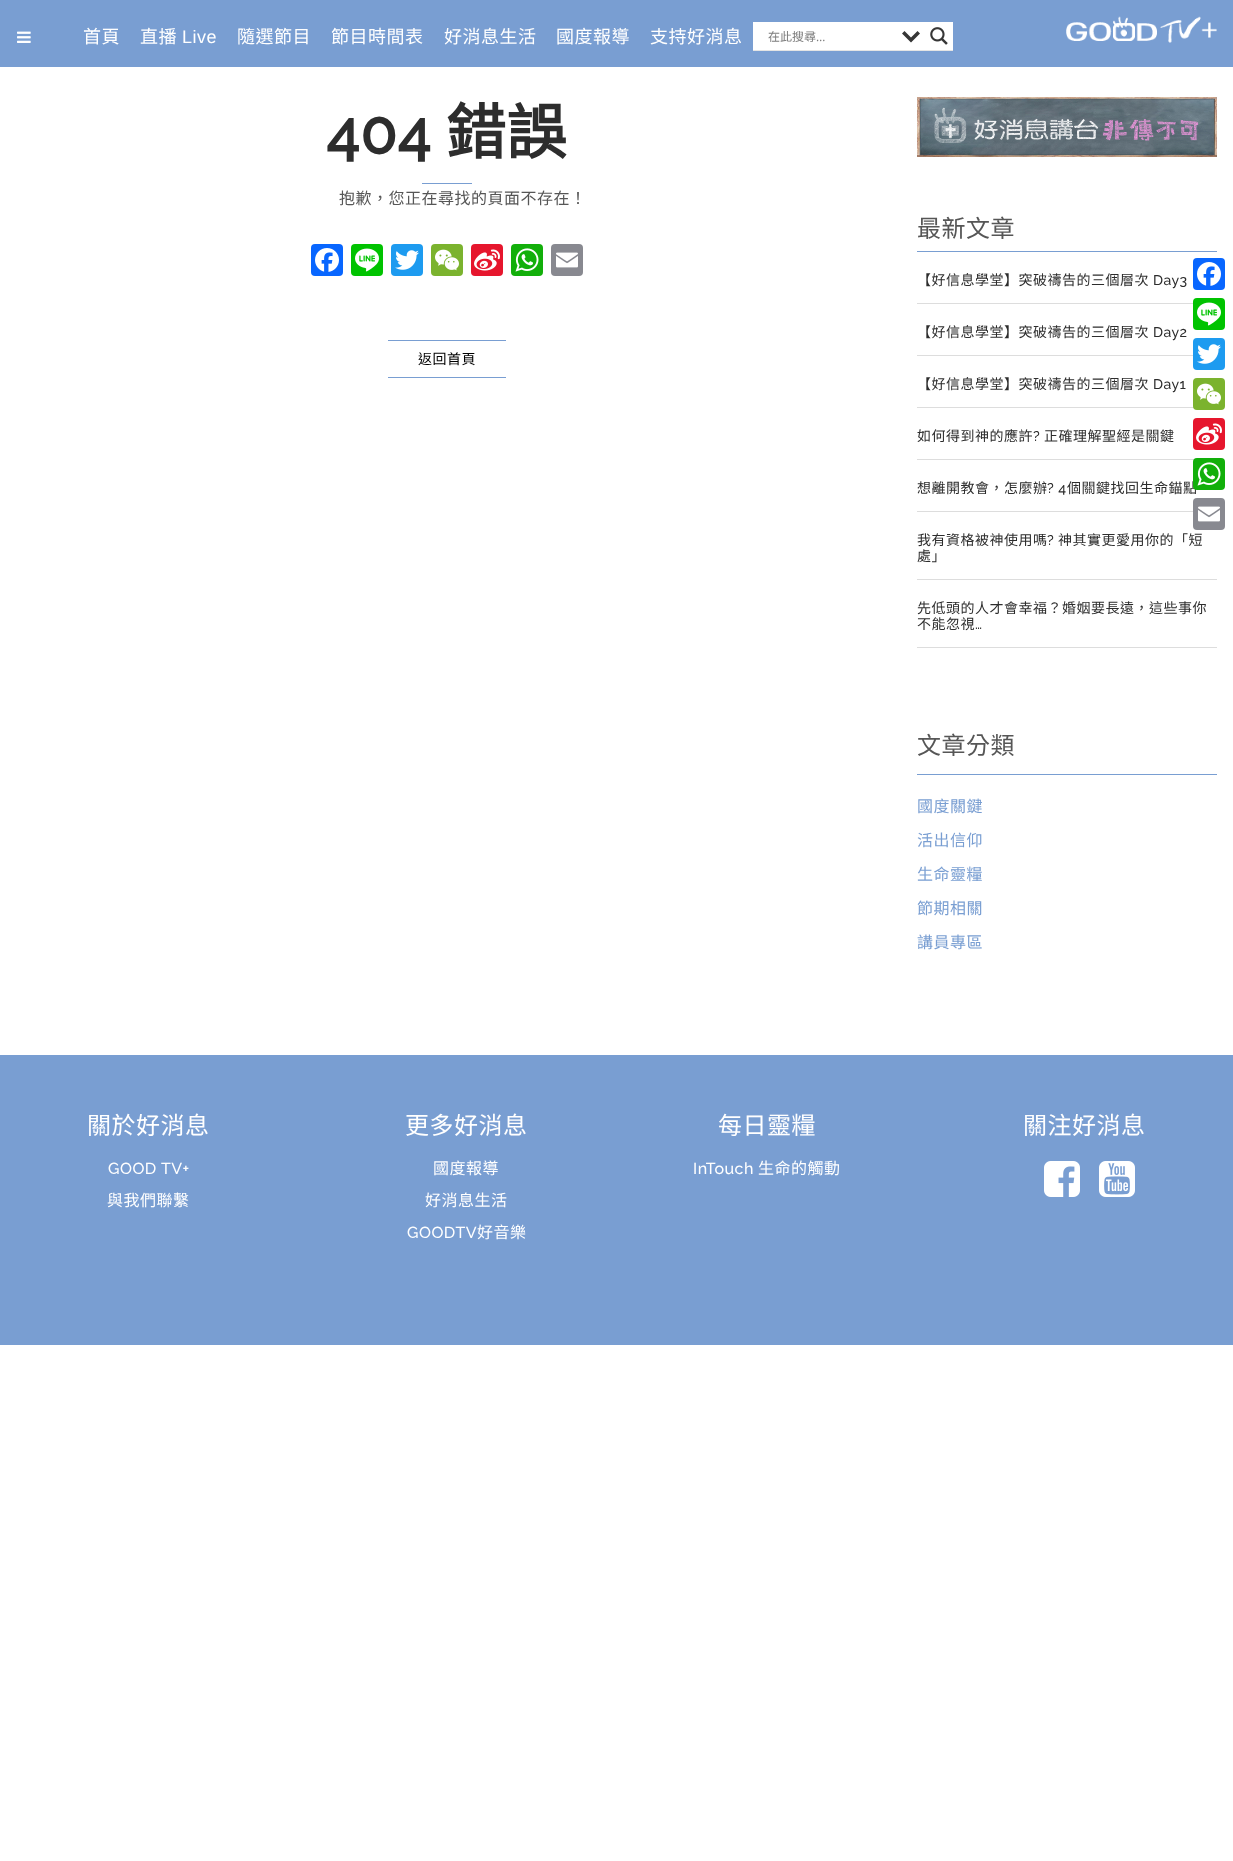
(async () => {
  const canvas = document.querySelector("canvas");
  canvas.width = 1233;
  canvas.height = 1861;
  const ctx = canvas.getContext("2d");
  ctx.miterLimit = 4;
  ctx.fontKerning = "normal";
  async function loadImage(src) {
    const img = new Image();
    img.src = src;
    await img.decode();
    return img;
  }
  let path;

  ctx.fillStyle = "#ffffff";
  ctx.fillRect(0, 0, 1233, 1861);
  ctx.fillStyle = "#799ed2";
  ctx.fillRect(0, 0, 1233, 67);
  ctx.drawImage(await loadImage("img/1.png"), 17, 31, 14, 12);
  ctx.fillStyle = "#e4e4e4";
  ctx.fillRect(753, 50, 200, 1);
  ctx.fillStyle = "#ffffff";
  ctx.fillRect(753, 22, 200, 28);
  ctx.fillStyle = "#363636";
  path = new Path2D("M917.5 31L920 33.5L911 42.5L902 33.5L904.5 31L911 37.5Z");
  ctx.fill(path);
  ctx.drawImage(await loadImage("img/2.png"), 930, 27, 18, 18);
  ctx.drawImage(await loadImage("img/3.png"), 1066, 16, 151, 27);
  ctx.fillStyle = "#799ed2";
  ctx.fillRect(422, 183, 50, 1);
  ctx.fillStyle = "#0866ff";
  ctx.beginPath();
  ctx.roundRect(311, 244, 32, 32, 4);
  ctx.fill();
  ctx.drawImage(await loadImage("img/4.png"), 315, 248, 24, 24);
  ctx.fillStyle = "#00c300";
  ctx.beginPath();
  ctx.roundRect(351, 244, 32, 32, 4);
  ctx.fill();
  ctx.drawImage(await loadImage("img/5.png"), 355, 248, 24, 24);
  ctx.fillStyle = "#1d9bf0";
  ctx.beginPath();
  ctx.roundRect(391, 244, 32, 32, 4);
  ctx.fill();
  ctx.drawImage(await loadImage("img/6.png"), 395, 250, 24, 20);
  ctx.fillStyle = "#7bb32e";
  ctx.beginPath();
  ctx.roundRect(431, 244, 32, 32, 4);
  ctx.fill();
  ctx.drawImage(await loadImage("img/7.png"), 435, 249, 24, 22);
  ctx.fillStyle = "#e6162d";
  ctx.beginPath();
  ctx.roundRect(471, 244, 32, 32, 4);
  ctx.fill();
  ctx.drawImage(await loadImage("img/8.png"), 474, 249, 26, 22);
  ctx.fillStyle = "#12af0a";
  ctx.beginPath();
  ctx.roundRect(511, 244, 32, 32, 4);
  ctx.fill();
  ctx.drawImage(await loadImage("img/9.png"), 515, 248, 24, 24);
  ctx.fillStyle = "#888990";
  ctx.beginPath();
  ctx.roundRect(551, 244, 32, 32, 4);
  ctx.fill();
  ctx.drawImage(await loadImage("img/10.png"), 556, 252, 22, 16);
  ctx.fillStyle = "#799ed2";
  ctx.fillRect(388, 340, 118, 1);
  ctx.fillRect(388, 377, 118, 1);
  ctx.drawImage(await loadImage("img/11.png"), 917, 97, 300, 60);
  for (const [x, y, w, h, color] of [
    [917, 251, 300, 1, "#799ed2"],
    [917, 303, 276, 1, "#dddddd"],
    [917, 355, 276, 1, "#dddddd"],
    [917, 407, 277, 1, "#dddddd"],
    [917, 459, 278, 1, "#dddddd"],
    [917, 511, 276, 1, "#dddddd"],
    [917, 579, 300, 1, "#dddddd"],
    [917, 647, 300, 1, "#dddddd"],
    [917, 774, 300, 1, "#799ed2"],
    [0, 1055, 1233, 290, "#799ed2"],
  ]) {
    ctx.fillStyle = color;
    ctx.fillRect(x, y, w, h);
  }
  ctx.drawImage(await loadImage("img/12.png"), 1044, 1161, 36, 36);
  ctx.drawImage(await loadImage("img/13.png"), 1099, 1161, 36, 36);
  ctx.fillStyle = "#0866ff";
  ctx.beginPath();
  ctx.roundRect(1193, 258, 32, 32, 4);
  ctx.fill();
  ctx.drawImage(await loadImage("img/4.png"), 1197, 262, 24, 24);
  ctx.fillStyle = "#00c300";
  ctx.beginPath();
  ctx.roundRect(1193, 298, 32, 32, 4);
  ctx.fill();
  ctx.drawImage(await loadImage("img/5.png"), 1197, 302, 24, 24);
  ctx.fillStyle = "#1d9bf0";
  ctx.beginPath();
  ctx.roundRect(1193, 338, 32, 32, 4);
  ctx.fill();
  ctx.drawImage(await loadImage("img/6.png"), 1197, 344, 24, 20);
  ctx.fillStyle = "#7bb32e";
  ctx.beginPath();
  ctx.roundRect(1193, 378, 32, 32, 4);
  ctx.fill();
  ctx.drawImage(await loadImage("img/7.png"), 1197, 383, 24, 22);
  ctx.fillStyle = "#e6162d";
  ctx.beginPath();
  ctx.roundRect(1193, 418, 32, 32, 4);
  ctx.fill();
  ctx.drawImage(await loadImage("img/8.png"), 1196, 423, 26, 22);
  ctx.fillStyle = "#888990";
  ctx.beginPath();
  ctx.roundRect(1193, 498, 32, 32, 4);
  ctx.fill();
  ctx.drawImage(await loadImage("img/10.png"), 1198, 506, 22, 16);
  ctx.letterSpacing = "0.5px";
  ctx.font = "18px Noto Sans CJK TC";
  ctx.fillStyle = "#ffffff";
  ctx.fillText("首頁", 83, 43);
  ctx.fillText("直播", 140, 43);
  ctx.font = "18px Liberation Sans";
  ctx.fillText("Live", 182, 43);
  ctx.font = "18px Noto Sans CJK TC";
  for (const [text, x, y] of [
    ["隨選節目", 237, 43],
    ["節目時間表", 331, 43],
    ["好消息生活", 444, 43],
    ["國度報導", 556, 43],
    ["支持好消息", 650, 43],
  ]) {
    ctx.fillText(text, x, y);
  }
  ctx.letterSpacing = "0px";
  ctx.font = "12px Noto Sans CJK TC";
  ctx.fillStyle = "#7d7d7d";
  ctx.fillText("在此搜尋", 768, 41);
  ctx.font = "12px Open Sans";
  ctx.fillText("…", 816, 41);
  ctx.letterSpacing = "0.5px";
  ctx.font = "bold 60px Raleway";
  ctx.fillStyle = "#2d2d2d";
  ctx.fillText("404", 326, 154);
  ctx.font = "bold 60px Noto Sans CJK TC";
  ctx.fillText("錯誤", 446, 154);
  ctx.font = "16px Noto Sans CJK TC";
  ctx.fillStyle = "#565656";
  ctx.fillText("抱歉，您正在尋找的頁面不存在！", 339, 204);
  ctx.font = "14px Noto Sans CJK TC";
  ctx.fillStyle = "#000000";
  ctx.fillText("返回首頁", 418, 364);
  ctx.font = "24px Noto Sans CJK TC";
  ctx.fillStyle = "#565656";
  ctx.fillText("最新文章", 917, 237);
  ctx.font = "14px Noto Sans CJK TC";
  ctx.fillStyle = "#2d2d2d";
  ctx.fillText("【好信息學堂】突破禱告的三個層次", 917, 285);
  ctx.font = "100 14px Raleway";
  ctx.fillText("Day3", 1153, 285);
  ctx.font = "14px Noto Sans CJK TC";
  ctx.fillText("【好信息學堂】突破禱告的三個層次", 917, 337);
  ctx.font = "100 14px Raleway";
  ctx.fillText("Day2", 1153, 337);
  ctx.font = "14px Noto Sans CJK TC";
  ctx.fillText("【好信息學堂】突破禱告的三個層次", 917, 389);
  ctx.font = "100 14px Raleway";
  ctx.fillText("Day1", 1153, 389);
  ctx.font = "14px Noto Sans CJK TC";
  ctx.fillText("如何得到神的應許", 917, 441);
  ctx.font = "100 14px Raleway";
  ctx.fillText("?", 1033, 441);
  ctx.font = "14px Noto Sans CJK TC";
  ctx.fillText("正確理解聖經是關鍵", 1044, 441);
  ctx.fillText("想離開教會，怎麼辦", 917, 493);
  ctx.font = "100 14px Raleway";
  ctx.fillText("? 4", 1047, 493);
  ctx.font = "14px Noto Sans CJK TC";
  ctx.fillText("個關鍵找回生命錨點", 1067, 493);
  ctx.fillText("我有資格被神使用嗎", 917, 545);
  ctx.font = "100 14px Raleway";
  ctx.fillText("?", 1047, 545);
  ctx.font = "14px Noto Sans CJK TC";
  for (const [text, x, y] of [
    ["神其實更愛用你的「短", 1058, 545],
    ["處」", 917, 561],
    ["先低頭的人才會幸福？婚姻要長遠，這些事你", 917, 613],
    ["不能忽視", 917, 629],
  ]) {
    ctx.fillText(text, x, y);
  }
  ctx.font = "100 14px Raleway";
  ctx.fillText("…", 975, 629);
  ctx.font = "24px Noto Sans CJK TC";
  ctx.fillStyle = "#565656";
  ctx.fillText("文章分類", 917, 754);
  ctx.font = "16px Noto Sans CJK TC";
  ctx.fillStyle = "#799ed2";
  for (const [text, x, y] of [
    ["國度關鍵", 917, 812],
    ["活出信仰", 917, 846],
    ["生命靈糧", 917, 880],
    ["節期相關", 917, 914],
    ["講員專區", 917, 948],
  ]) {
    ctx.fillText(text, x, y);
  }
  ctx.font = "24px Noto Sans CJK TC";
  ctx.fillStyle = "#ffffff";
  ctx.fillText("關於好消息", 87, 1134);
  ctx.font = "100 16px Raleway";
  ctx.fillText("GOOD TV+", 108, 1174);
  ctx.font = "16px Noto Sans CJK TC";
  ctx.fillText("與我們聯繫", 107, 1206);
  ctx.font = "24px Noto Sans CJK TC";
  ctx.fillText("更多好消息", 405, 1134);
  ctx.font = "16px Noto Sans CJK TC";
  ctx.fillText("國度報導", 433, 1174);
  ctx.fillText("好消息生活", 425, 1206);
  ctx.font = "100 16px Raleway";
  ctx.fillText("GOODTV", 407, 1238);
  ctx.font = "16px Noto Sans CJK TC";
  ctx.fillText("好音樂", 477, 1238);
  ctx.font = "24px Noto Sans CJK TC";
  ctx.fillText("每日靈糧", 718, 1134);
  ctx.font = "100 16px Raleway";
  ctx.fillText("InTouch", 693, 1174);
  ctx.font = "16px Noto Sans CJK TC";
  ctx.fillText("生命的觸動", 758, 1174);
  ctx.font = "24px Noto Sans CJK TC";
  ctx.fillText("關注好消息", 1023, 1134);
  ctx.fillStyle = "#12af0a";
  ctx.beginPath();
  ctx.roundRect(1193, 458, 32, 32, 4);
  ctx.fill();
  ctx.drawImage(await loadImage("img/9.png"), 1197, 462, 24, 24);
})();
